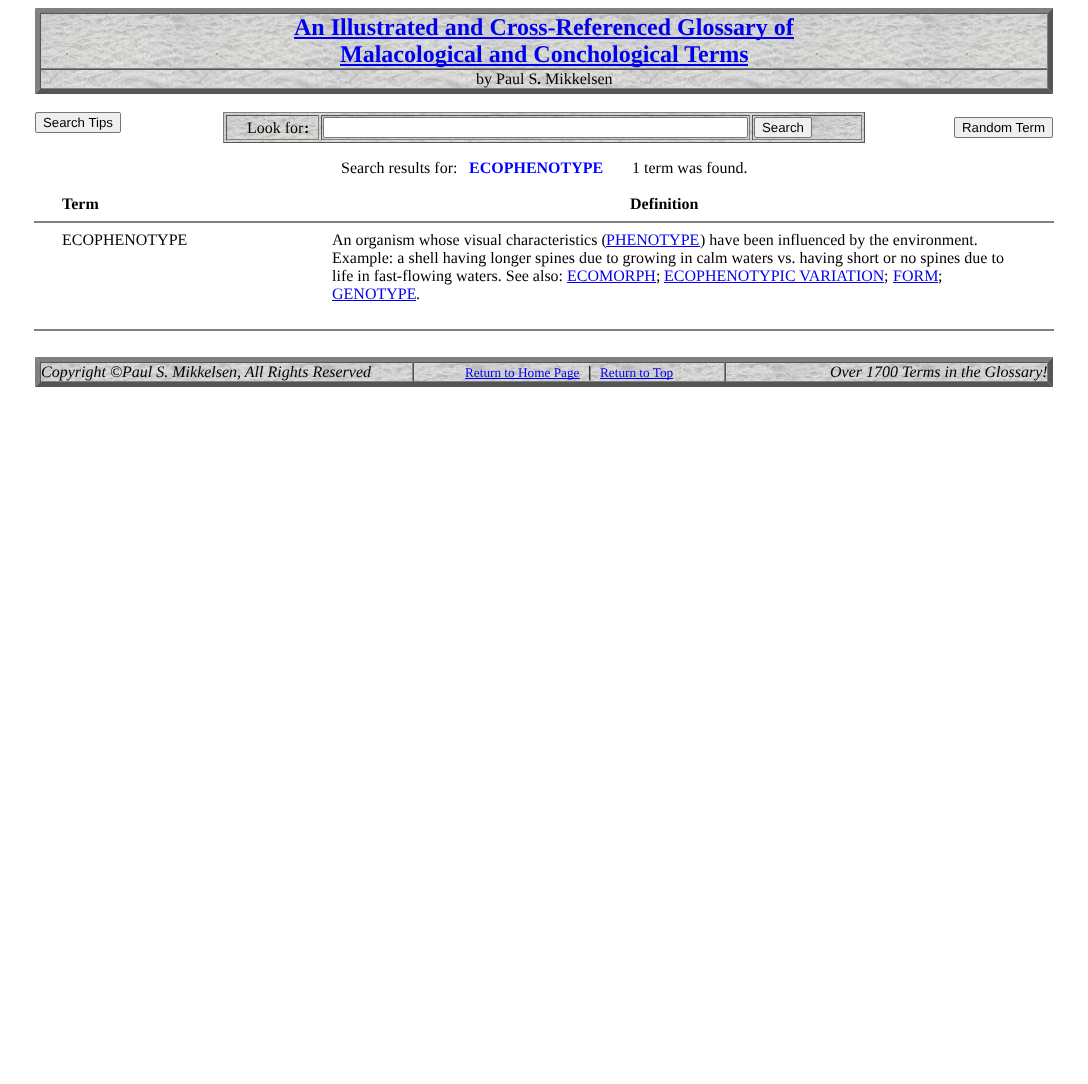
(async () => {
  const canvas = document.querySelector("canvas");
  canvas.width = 1088;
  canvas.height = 1084;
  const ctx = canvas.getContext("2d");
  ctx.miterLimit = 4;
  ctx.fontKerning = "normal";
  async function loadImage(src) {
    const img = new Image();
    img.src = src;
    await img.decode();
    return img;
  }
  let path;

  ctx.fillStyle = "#ffffff";
  ctx.fillRect(0, 0, 1088, 1084);
  ctx.drawImage(await loadImage("img/1.png"), 35, 8, 1018, 86);
  ctx.fillStyle = "#808080";
  path = new Path2D("M35 8H1053L1048 13H40Z");
  ctx.fill(path);
  ctx.fillStyle = "#555555";
  path = new Path2D("M1053 8V94L1048 89V13Z");
  ctx.fill(path);
  path = new Path2D("M1053 94H35L40 89H1048Z");
  ctx.fill(path);
  ctx.fillStyle = "#808080";
  path = new Path2D("M35 94V8L40 13V89Z");
  ctx.fill(path);
  for (const [x, y, w, h, color] of [
    [40, 13, 1008, 1, "#555555"],
    [1047, 13, 1, 56, "#808080"],
    [40, 68, 1008, 1, "#808080"],
    [40, 13, 1, 56, "#555555"],
    [294, 37, 500, 2, "#0000ee"],
    [340, 64, 408, 2, "#0000ee"],
    [40, 69, 1008, 1, "#555555"],
    [1047, 69, 1, 20, "#808080"],
    [40, 88, 1008, 1, "#808080"],
    [40, 69, 1, 20, "#555555"],
  ]) {
    ctx.fillStyle = color;
    ctx.fillRect(x, y, w, h);
  }
  ctx.fillStyle = "#efefef";
  ctx.beginPath();
  ctx.roundRect(35.5, 112.5, 85, 20, 1.5);
  ctx.fill();
  ctx.strokeStyle = "#767676";
  ctx.stroke();
  ctx.drawImage(await loadImage("img/2.png"), 224, 113, 640, 29);
  for (const [x, y, w, h, color] of [
    [223, 112, 642, 1, "#808080"],
    [864, 112, 1, 31, "#555555"],
    [223, 142, 642, 1, "#555555"],
    [223, 112, 1, 31, "#808080"],
    [226, 115, 93, 1, "#555555"],
    [318, 115, 1, 25, "#808080"],
    [226, 139, 93, 1, "#808080"],
    [226, 115, 1, 25, "#555555"],
    [321, 115, 429, 1, "#555555"],
    [749, 115, 1, 25, "#808080"],
    [321, 139, 429, 1, "#808080"],
    [321, 115, 1, 25, "#555555"],
  ]) {
    ctx.fillStyle = color;
    ctx.fillRect(x, y, w, h);
  }
  ctx.fillStyle = "#ffffff";
  ctx.beginPath();
  ctx.roundRect(323.5, 117.5, 424, 20, 1.5);
  ctx.fill();
  ctx.stroke();
  for (const [x, y, w, h, color] of [
    [752, 115, 110, 1, "#555555"],
    [861, 115, 1, 25, "#808080"],
    [752, 139, 110, 1, "#808080"],
    [752, 115, 1, 25, "#555555"],
  ]) {
    ctx.fillStyle = color;
    ctx.fillRect(x, y, w, h);
  }
  ctx.fillStyle = "#efefef";
  ctx.beginPath();
  ctx.roundRect(754.5, 117.5, 57, 20, 1.5);
  ctx.fill();
  ctx.stroke();
  ctx.beginPath();
  ctx.roundRect(954.5, 117.5, 98, 20, 1.5);
  ctx.fill();
  ctx.stroke();
  for (const [x, y, w, h, color] of [
    [34, 221, 1020, 2, "#808080"],
    [606, 246, 94, 1, "#0000ee"],
    [567, 282, 89, 1, "#0000ee"],
    [664, 282, 220, 1, "#0000ee"],
    [893, 282, 45, 1, "#0000ee"],
    [332, 300, 84, 1, "#0000ee"],
    [34, 329, 1020, 2, "#808080"],
  ]) {
    ctx.fillStyle = color;
    ctx.fillRect(x, y, w, h);
  }
  ctx.drawImage(await loadImage("img/3.png"), 35, 357, 1018, 30);
  path = new Path2D("M35 357H1053L1048 362H40Z");
  ctx.fill(path);
  ctx.fillStyle = "#555555";
  path = new Path2D("M1053 357V387L1048 382V362Z");
  ctx.fill(path);
  path = new Path2D("M1053 387H35L40 382H1048Z");
  ctx.fill(path);
  ctx.fillStyle = "#808080";
  path = new Path2D("M35 387V357L40 362V382Z");
  ctx.fill(path);
  for (const [x, y, w, h, color] of [
    [40, 362, 1008, 1, "#555555"],
    [412, 362, 1, 20, "#808080"],
    [40, 381, 373, 1, "#808080"],
    [40, 362, 1, 20, "#555555"],
    [724, 362, 1, 20, "#808080"],
    [413, 381, 312, 1, "#808080"],
    [413, 362, 1, 20, "#555555"],
    [465, 378, 115, 1, "#0000ee"],
    [600, 378, 73, 1, "#0000ee"],
    [1047, 362, 1, 20, "#808080"],
    [725, 381, 323, 1, "#808080"],
    [725, 362, 1, 20, "#555555"],
  ]) {
    ctx.fillStyle = color;
    ctx.fillRect(x, y, w, h);
  }
  ctx.font = "bold 24px Liberation Serif";
  ctx.fillStyle = "#0000ee";
  ctx.fillText("An Illustrated and Cross-Referenced Glossary of", 294, 35);
  ctx.fillText("Malacological and Conchological Terms", 340, 62);
  ctx.font = "16px Liberation Serif";
  ctx.fillStyle = "#000000";
  ctx.fillText("by Paul S", 476, 84);
  ctx.font = "bold 16px Liberation Serif";
  ctx.fillText(".", 537, 84);
  ctx.font = "16px Liberation Serif";
  ctx.fillText("Mikkelsen", 545, 84);
  ctx.font = "13.25px Liberation Sans";
  ctx.fillText("Search Tips", 43, 127);
  ctx.font = "16px Liberation Serif";
  ctx.fillText("Look for", 247, 133);
  ctx.font = "bold 16px Liberation Serif";
  ctx.fillText(":", 304, 133);
  ctx.font = "13.25px Liberation Sans";
  ctx.fillText("Search", 762, 132);
  ctx.fillText("Random Term", 962, 132);
  ctx.font = "16px Liberation Serif";
  ctx.fillText("Search results for:", 341, 173);
  ctx.font = "bold 16px Liberation Serif";
  ctx.fillStyle = "#0000ff";
  ctx.fillText("ECOPHENOTYPE", 469, 173);
  ctx.font = "16px Liberation Serif";
  ctx.fillStyle = "#000000";
  ctx.fillText("1 term was found.", 632, 173);
  ctx.font = "bold 16px Liberation Serif";
  ctx.fillText("Term", 62, 209);
  ctx.fillText("Definition", 630, 209);
  ctx.font = "16px Liberation Serif";
  ctx.fillText("ECOPHENOTYPE", 62, 245);
  ctx.fillText("An organism whose visual characteristics (", 332, 245);
  ctx.fillStyle = "#0000ee";
  ctx.fillText("PHENOTYPE", 606, 245);
  ctx.fillStyle = "#000000";
  for (const [text, x, y] of [
    [") have been influenced by the environment.", 700, 245],
    ["Example: a shell having longer spines due to growing in calm waters vs. having short or no spines due to", 332, 263],
    ["life in fast-flowing waters. See also:", 332, 281],
  ]) {
    ctx.fillText(text, x, y);
  }
  ctx.fillStyle = "#0000ee";
  ctx.fillText("ECOMORPH", 567, 281);
  ctx.fillStyle = "#000000";
  ctx.fillText(";", 656, 281);
  ctx.fillStyle = "#0000ee";
  ctx.fillText("ECOPHENOTYPIC VARIATION", 664, 281);
  ctx.fillStyle = "#000000";
  ctx.fillText(";", 884, 281);
  ctx.fillStyle = "#0000ee";
  ctx.fillText("FORM", 893, 281);
  ctx.fillStyle = "#000000";
  ctx.fillText(";", 938, 281);
  ctx.fillStyle = "#0000ee";
  ctx.fillText("GENOTYPE", 332, 299);
  ctx.fillStyle = "#000000";
  ctx.fillText(".", 416, 299);
  ctx.font = "italic 16px Liberation Serif";
  ctx.fillText("Copyright ©Paul S. Mikkelsen, All Rights Reserved", 41, 377);
  ctx.font = "13.25px Liberation Serif";
  ctx.fillStyle = "#0000ee";
  ctx.fillText("Return to Home Page", 465, 377);
  ctx.font = "bold 16px Liberation Serif";
  ctx.fillStyle = "#000000";
  ctx.fillText("|", 588, 377);
  ctx.font = "13.25px Liberation Serif";
  ctx.fillStyle = "#0000ee";
  ctx.fillText("Return to Top", 600, 377);
  ctx.font = "italic 16px Liberation Serif";
  ctx.fillStyle = "#000000";
  ctx.fillText("Over 1700 Terms in the Glossary!", 830, 377);
})();
